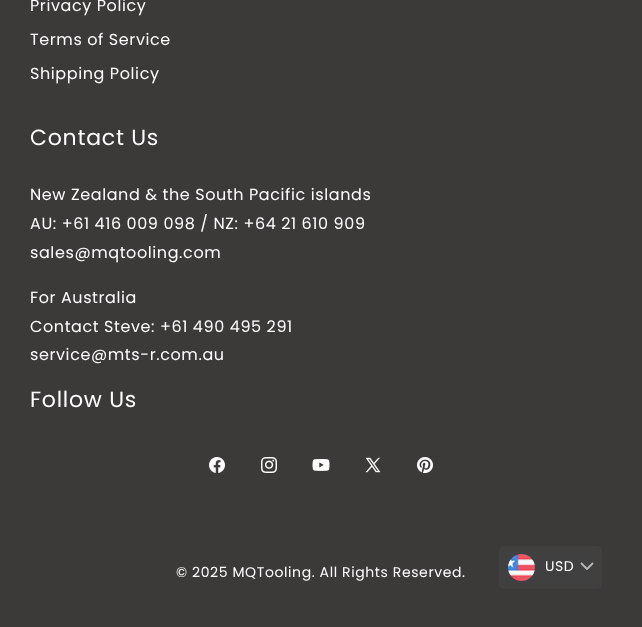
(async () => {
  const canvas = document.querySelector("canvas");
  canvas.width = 642;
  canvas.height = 627;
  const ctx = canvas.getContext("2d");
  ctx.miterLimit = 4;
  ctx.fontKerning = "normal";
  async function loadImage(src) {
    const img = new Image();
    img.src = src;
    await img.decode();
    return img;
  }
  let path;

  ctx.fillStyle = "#3b3a39";
  ctx.fillRect(0, 0, 642, 627);
  ctx.drawImage(await loadImage("img/1.png"), 209, 457, 16, 16);
  ctx.drawImage(await loadImage("img/2.png"), 261, 457, 16, 16);
  ctx.drawImage(await loadImage("img/3.png"), 312, 459, 18, 12);
  ctx.drawImage(await loadImage("img/4.png"), 365, 457, 16, 16);
  ctx.drawImage(await loadImage("img/5.png"), 417, 457, 16, 16);
  ctx.fillStyle = "#404040";
  ctx.beginPath();
  ctx.roundRect(499, 546, 103, 43, 5);
  ctx.fill();
  ctx.drawImage(await loadImage("img/6.png"), 508, 554, 27, 27);
  path = new Path2D("M581.5 563.5L587 569L592.5 563.5");
  ctx.strokeStyle = "#b7b7b7";
  ctx.lineWidth = 1.8;
  ctx.lineCap = "round";
  ctx.lineJoin = "round";
  ctx.stroke(path);
  ctx.letterSpacing = "0.6px";
  ctx.font = "16px Poppins";
  ctx.fillStyle = "#ffffff";
  for (const [text, x, y] of [
    ["Privacy Policy", 30, 11],
    ["Terms of Service", 30, 45],
    ["Shipping Policy", 30, 79],
  ]) {
    ctx.fillText(text, x, y);
  }
  ctx.letterSpacing = "0.75px";
  ctx.font = "22px Poppins";
  ctx.fillText("Contact Us", 30, 145);
  ctx.letterSpacing = "0.6px";
  ctx.font = "16px Poppins";
  for (const [text, x, y] of [
    ["New Zealand & the South Pacific islands", 30, 200],
    ["AU: +61 416 009 098 / NZ: +64 21 610 909", 30, 229],
    ["sales@mqtooling.com", 30, 258],
    ["For Australia", 30, 303],
    ["Contact Steve: +61 490 495 291", 30, 332],
    ["service@mts-r.com.au", 30, 360],
  ]) {
    ctx.fillText(text, x, y);
  }
  ctx.letterSpacing = "0.75px";
  ctx.font = "22px Poppins";
  ctx.fillText("Follow Us", 30, 407);
  ctx.letterSpacing = "0.6px";
  ctx.font = "14px Poppins";
  ctx.fillText("© 2025 MQTooling. All Rights Reserved.", 176, 577);
  ctx.fillText("USD", 545, 571);
})();
